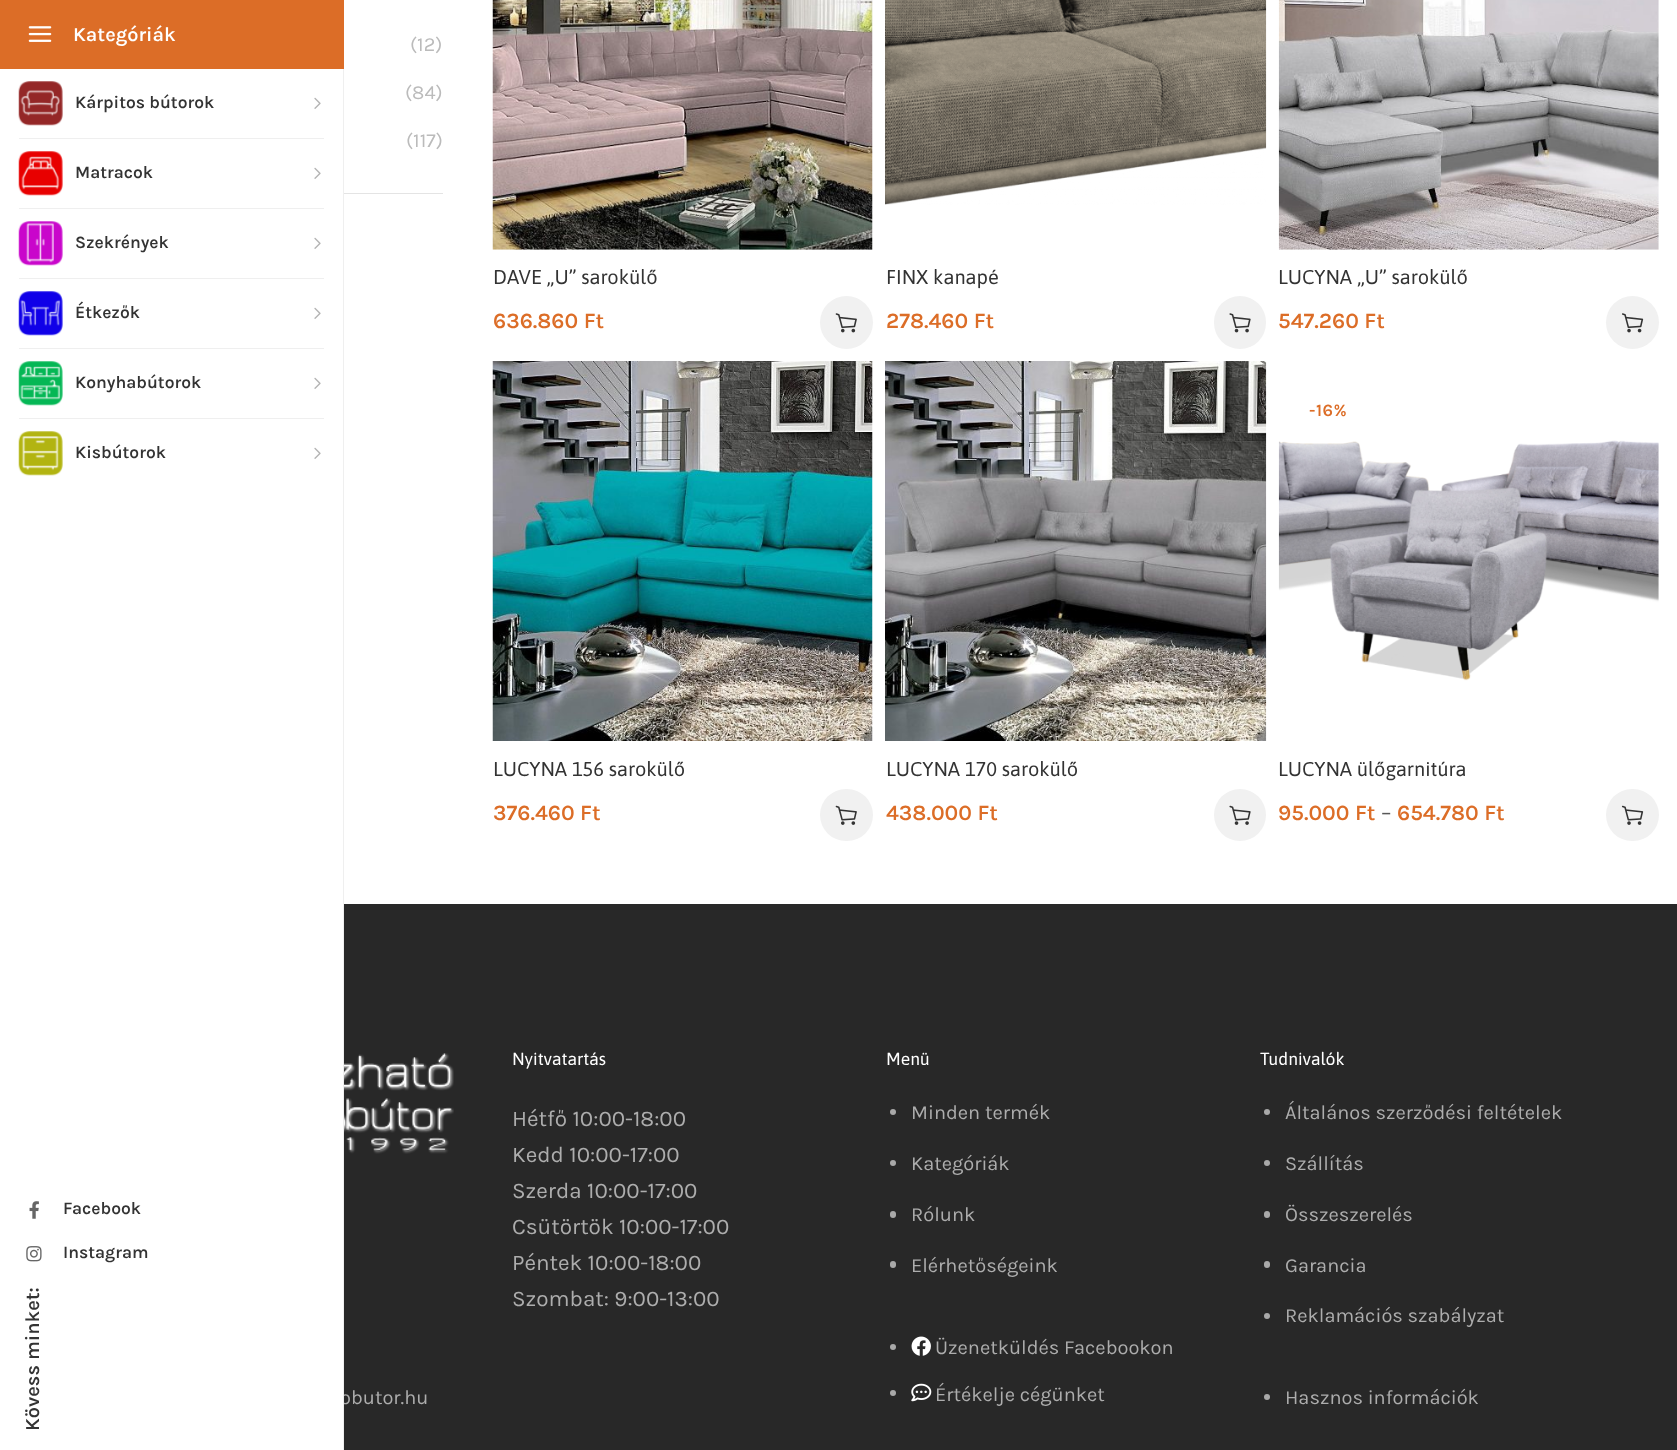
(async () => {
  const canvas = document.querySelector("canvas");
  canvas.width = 1677;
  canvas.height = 1450;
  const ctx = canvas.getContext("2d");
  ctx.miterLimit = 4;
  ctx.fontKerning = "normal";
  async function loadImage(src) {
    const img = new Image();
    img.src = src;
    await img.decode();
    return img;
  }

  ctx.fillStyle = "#ffffff";
  ctx.fillRect(0, 0, 1677, 1450);
  ctx.fillStyle = "#dc6d27";
  ctx.fillRect(0, 0, 344, 69);
  ctx.drawImage(await loadImage("img/1.png"), 28, 26, 24, 16);
  ctx.drawImage(await loadImage("img/2.png"), 18, 81, 45, 45);
  ctx.drawImage(await loadImage("img/3.png"), 314, 97, 7, 12);
  ctx.fillStyle = "#efefef";
  ctx.fillRect(19, 138, 305, 1);
  ctx.drawImage(await loadImage("img/4.png"), 18, 151, 45, 45);
  ctx.drawImage(await loadImage("img/3.png"), 314, 167, 7, 12);
  ctx.fillRect(19, 208, 305, 1);
  ctx.drawImage(await loadImage("img/5.png"), 18, 221, 45, 45);
  ctx.drawImage(await loadImage("img/3.png"), 314, 237, 7, 12);
  ctx.fillRect(19, 278, 305, 1);
  ctx.drawImage(await loadImage("img/6.png"), 18, 291, 45, 45);
  ctx.drawImage(await loadImage("img/3.png"), 314, 307, 7, 12);
  ctx.fillRect(19, 348, 305, 1);
  ctx.drawImage(await loadImage("img/7.png"), 18, 361, 45, 45);
  ctx.drawImage(await loadImage("img/3.png"), 314, 377, 7, 12);
  ctx.fillRect(19, 418, 305, 1);
  ctx.drawImage(await loadImage("img/8.png"), 18, 431, 45, 45);
  ctx.drawImage(await loadImage("img/3.png"), 314, 447, 7, 12);
  ctx.drawImage(await loadImage("img/9.png"), 29, 1201, 10, 18);
  ctx.drawImage(await loadImage("img/10.png"), 26, 1246, 16, 16);
  ctx.fillStyle = "#e4e4e4";
  ctx.fillRect(344, 193, 99, 1);
  ctx.drawImage(await loadImage("img/11.png"), 492, 0, 381, 250);
  ctx.fillStyle = "#f1f1f1";
  ctx.beginPath();
  ctx.arc(846.5, 322.5, 26.5, 0, Math.PI * 2);
  ctx.fill();
  ctx.drawImage(await loadImage("img/12.png"), 835, 313, 22, 20);
  ctx.drawImage(await loadImage("img/13.png"), 885, 0, 382, 205);
  ctx.beginPath();
  ctx.roundRect(1214, 296, 52, 53, 26);
  ctx.fill();
  ctx.drawImage(await loadImage("img/14.png"), 1229, 313, 22, 20);
  ctx.drawImage(await loadImage("img/15.png"), 1278, 0, 381, 250);
  ctx.beginPath();
  ctx.arc(1632.5, 322.5, 26.5, 0, Math.PI * 2);
  ctx.fill();
  ctx.drawImage(await loadImage("img/16.png"), 1622, 313, 22, 20);
  ctx.drawImage(await loadImage("img/17.png"), 492, 361, 381, 380);
  ctx.beginPath();
  ctx.roundRect(820, 789, 53, 52, 26);
  ctx.fill();
  ctx.drawImage(await loadImage("img/18.png"), 835, 805, 22, 20);
  ctx.drawImage(await loadImage("img/19.png"), 885, 361, 382, 380);
  ctx.beginPath();
  ctx.arc(1240, 815, 26, 0, Math.PI * 2);
  ctx.fill();
  ctx.drawImage(await loadImage("img/20.png"), 1229, 805, 22, 20);
  ctx.drawImage(await loadImage("img/21.png"), 1278, 440, 381, 241);
  ctx.beginPath();
  ctx.roundRect(1606, 789, 53, 52, 26);
  ctx.fill();
  ctx.drawImage(await loadImage("img/22.png"), 1621, 805, 23, 20);
  ctx.fillStyle = "#282828";
  ctx.fillRect(344, 904, 1333, 546);
  ctx.drawImage(await loadImage("img/23.png"), 344, 1053, 110, 101);
  ctx.fillStyle = "#a9a9a9";
  ctx.beginPath();
  ctx.arc(893, 1112, 3, 0, Math.PI * 2);
  ctx.fill();
  ctx.beginPath();
  ctx.arc(893, 1163, 3, 0, Math.PI * 2);
  ctx.fill();
  ctx.beginPath();
  ctx.roundRect(890, 1211, 6, 7, 3);
  ctx.fill();
  ctx.beginPath();
  ctx.roundRect(890, 1261, 6, 7, 3);
  ctx.fill();
  ctx.beginPath();
  ctx.arc(893, 1347, 3, 0, Math.PI * 2);
  ctx.fill();
  ctx.drawImage(await loadImage("img/24.png"), 911, 1336, 20, 20);
  ctx.beginPath();
  ctx.arc(893, 1393, 3, 0, Math.PI * 2);
  ctx.fill();
  ctx.drawImage(await loadImage("img/25.png"), 911, 1383, 21, 19);
  ctx.beginPath();
  ctx.arc(1267, 1112, 3, 0, Math.PI * 2);
  ctx.fill();
  ctx.beginPath();
  ctx.arc(1267, 1163, 3, 0, Math.PI * 2);
  ctx.fill();
  ctx.beginPath();
  ctx.roundRect(1264, 1211, 6, 7, 3);
  ctx.fill();
  ctx.beginPath();
  ctx.roundRect(1264, 1261, 6, 7, 3);
  ctx.fill();
  ctx.beginPath();
  ctx.arc(1267, 1316, 3, 0, Math.PI * 2);
  ctx.fill();
  ctx.beginPath();
  ctx.arc(1267, 1397, 3, 0, Math.PI * 2);
  ctx.fill();
  ctx.font = "600 20px Karla";
  ctx.fillStyle = "#ffffff";
  ctx.fillText("Kategóriák", 73, 41);
  ctx.font = "600 17.5px Karla";
  ctx.fillStyle = "#333333";
  for (const [text, x, y] of [
    ["Kárpitos bútorok", 75, 108],
    ["Matracok", 75, 178],
    ["Szekrények", 75, 248],
    ["Étkezők", 75, 318],
    ["Konyhabútorok", 75, 388],
    ["Kisbútorok", 75, 458],
    ["Facebook", 63, 1214],
    ["Instagram", 63, 1258],
  ]) {
    ctx.fillText(text, x, y);
  }
  ctx.font = "600 20px Karla";
  ctx.save();
  ctx.translate(39, 1431);
  ctx.rotate(-90 * Math.PI / 180);
  ctx.fillText("Kövess minket:", 0, 0);
  ctx.restore();
  ctx.font = "20px Karla";
  ctx.fillStyle = "#bbbbbb";
  for (const [text, x, y] of [
    ["(12)", 410, 51],
    ["(84)", 405, 99],
    ["(117)", 406, 147],
  ]) {
    ctx.fillText(text, x, y);
  }
  ctx.font = "20px Asap";
  ctx.fillStyle = "#333333";
  ctx.fillText("DAVE „U” sarokülő", 493, 284);
  ctx.font = "600 22px Karla";
  ctx.fillStyle = "#dc6d27";
  ctx.fillText("636.860 Ft", 493, 328);
  ctx.font = "20px Asap";
  ctx.fillStyle = "#333333";
  ctx.fillText("FINX kanapé", 886, 284);
  ctx.font = "600 22px Karla";
  ctx.fillStyle = "#dc6d27";
  ctx.fillText("278.460 Ft", 886, 328);
  ctx.font = "20px Asap";
  ctx.fillStyle = "#333333";
  ctx.fillText("LUCYNA „U” sarokülő", 1278, 284);
  ctx.font = "600 22px Karla";
  ctx.fillStyle = "#dc6d27";
  ctx.fillText("547.260 Ft", 1278, 328);
  ctx.font = "20px Asap";
  ctx.fillStyle = "#333333";
  ctx.fillText("LUCYNA 156 sarokülő", 493, 776);
  ctx.font = "600 22px Karla";
  ctx.fillStyle = "#dc6d27";
  ctx.fillText("376.460 Ft", 493, 820);
  ctx.font = "20px Asap";
  ctx.fillStyle = "#333333";
  ctx.fillText("LUCYNA 170 sarokülő", 886, 776);
  ctx.font = "600 22px Karla";
  ctx.fillStyle = "#dc6d27";
  ctx.fillText("438.000 Ft", 886, 820);
  ctx.letterSpacing = "0.5px";
  ctx.font = "600 17.5px Karla";
  ctx.fillText("-16%", 1309, 416);
  ctx.letterSpacing = "0px";
  ctx.font = "20px Asap";
  ctx.fillStyle = "#333333";
  ctx.fillText("LUCYNA ülőgarnitúra", 1278, 776);
  ctx.font = "600 22px Karla";
  ctx.fillStyle = "#dc6d27";
  ctx.fillText("95.000 Ft", 1278, 820);
  ctx.font = "22px Karla";
  ctx.fillStyle = "#585858";
  ctx.fillText("–", 1381, 820);
  ctx.font = "600 22px Karla";
  ctx.fillStyle = "#dc6d27";
  ctx.fillText("654.780 Ft", 1397, 820);
  ctx.font = "20px Karla";
  ctx.fillStyle = "#adadad";
  ctx.fillText("obutor.hu", 340, 1404);
  ctx.fillStyle = "#efefef";
  ctx.fillRect(343, 69, 1, 1381);
  ctx.fillStyle = "#ffffff";
  ctx.fillRect(341, 1395, 2, 9);
  ctx.font = "17.5px Asap";
  ctx.fillText("Nyitvatartás", 512, 1065);
  ctx.font = "22.5px Karla";
  ctx.fillStyle = "#adadad";
  for (const [text, x, y] of [
    ["Hétfő 10:00-18:00", 512, 1126],
    ["Kedd 10:00-17:00", 512, 1162],
    ["Szerda 10:00-17:00", 512, 1198],
    ["Csütörtök 10:00-17:00", 512, 1234],
    ["Péntek 10:00-18:00", 512, 1270],
    ["Szombat: 9:00-13:00", 512, 1306],
  ]) {
    ctx.fillText(text, x, y);
  }
  ctx.font = "17.5px Asap";
  ctx.fillStyle = "#ffffff";
  ctx.fillText("Menü", 886, 1065);
  ctx.font = "20px Karla";
  ctx.fillStyle = "#adadad";
  for (const [text, x, y] of [
    ["Minden termék", 911, 1119],
    ["Kategóriák", 911, 1170],
    ["Rólunk", 911, 1221],
    ["Elérhetőségeink", 911, 1272],
    ["Üzenetküldés Facebookon", 935, 1354],
    ["Értékelje cégünket", 935, 1401],
  ]) {
    ctx.fillText(text, x, y);
  }
  ctx.font = "17.5px Asap";
  ctx.fillStyle = "#ffffff";
  ctx.fillText("Tudnivalók", 1260, 1065);
  ctx.font = "20px Karla";
  ctx.fillStyle = "#adadad";
  for (const [text, x, y] of [
    ["Általános szerződési feltételek", 1285, 1119],
    ["Szállítás", 1285, 1170],
    ["Összeszerelés", 1285, 1221],
    ["Garancia", 1285, 1272],
    ["Reklamációs szabályzat", 1285, 1322],
    ["Hasznos információk", 1285, 1404],
  ]) {
    ctx.fillText(text, x, y);
  }
})();
